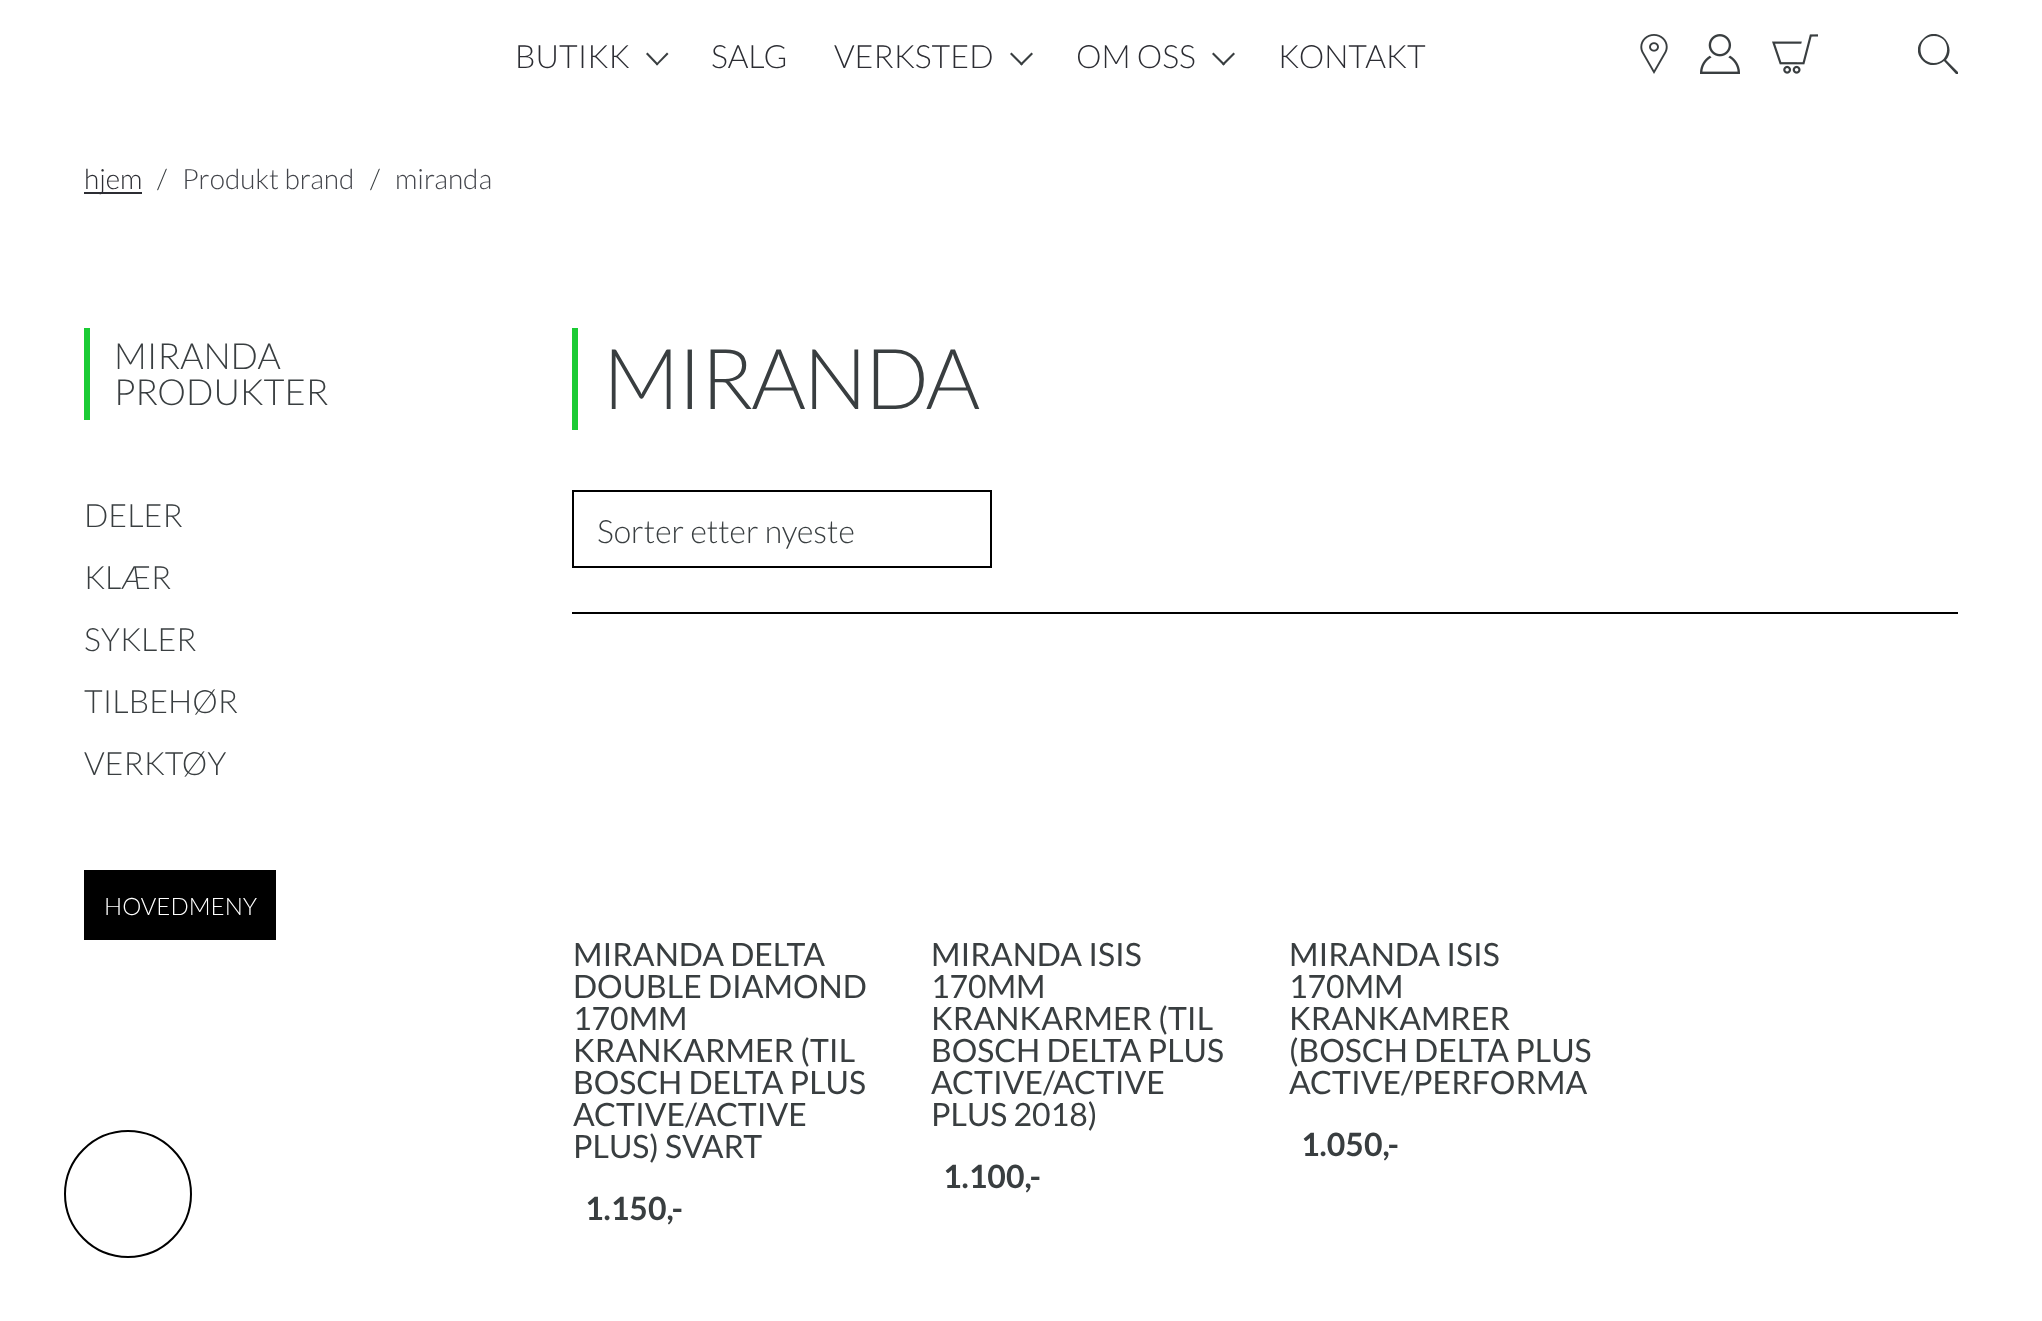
(async () => {
  const canvas = document.querySelector("canvas");
  canvas.width = 2042;
  canvas.height = 1321;
  const ctx = canvas.getContext("2d");
  ctx.miterLimit = 4;
  ctx.fontKerning = "normal";
  async function loadImage(src) {
    const img = new Image();
    img.src = src;
    await img.decode();
    return img;
  }
  let path;

  ctx.fillStyle = "#ffffff";
  ctx.fillRect(0, 0, 2042, 1321);
  ctx.fillStyle = "#393e40";
  path = new Path2D("M656 64L667 52.5L668.5 54L657 65.5Z");
  ctx.fill(path);
  path = new Path2D("M646 54L647.5 52.5L658.5 64L657 65.5Z");
  ctx.fill(path);
  path = new Path2D("M1020 64L1031.5 52.5L1033 54L1021.5 65.5Z");
  ctx.fill(path);
  path = new Path2D("M1010 54L1011.5 52.5L1023 64L1021.5 65.5Z");
  ctx.fill(path);
  path = new Path2D("M1222 64L1233.5 52.5L1235 54L1223.5 65.5Z");
  ctx.fill(path);
  path = new Path2D("M1212 54L1213.5 52.5L1225 64L1223.5 65.5Z");
  ctx.fill(path);
  ctx.drawImage(await loadImage("img/1.png"), 1640, 34, 28, 40);
  ctx.drawImage(await loadImage("img/2.png"), 1700, 34, 40, 40);
  ctx.drawImage(await loadImage("img/3.png"), 1772, 34, 46, 40);
  ctx.save();
  ctx.beginPath();
  ctx.rect(1918, 34, 40, 40);
  ctx.clip();
  path = new Path2D("M1946 60C1958 45 1937 24 1923 39C1908 53 1929 74 1944 61L1956 74H1958V72ZM1934 63C1916 63 1916 36 1934 36C1952 36 1951 63 1934 63Z");
  ctx.fill(path);
  ctx.restore();
  for (const [x, y, w, h, color] of [
    [84, 192, 58, 2, "#2c2d33"],
    [84, 328, 6, 92, "#1bcb34"],
    [84, 870, 192, 70, "#000000"],
    [572, 328, 6, 102, "#1bcb34"],
  ]) {
    ctx.fillStyle = color;
    ctx.fillRect(x, y, w, h);
  }
  ctx.strokeStyle = "#000000";
  ctx.lineWidth = 2;
  ctx.strokeRect(573, 491, 418, 76);
  ctx.fillStyle = "#000000";
  ctx.fillRect(572, 612, 1386, 2);
  ctx.beginPath();
  ctx.arc(128, 1194, 63, 0, Math.PI * 2);
  ctx.stroke();
  ctx.font = "300 32px Lato";
  ctx.fillStyle = "#2c2d33";
  for (const [text, x, y] of [
    ["BUTIKK", 515, 68],
    ["SALG", 711, 68],
    ["VERKSTED", 834, 68],
    ["OM OSS", 1076, 68],
    ["KONTAKT", 1278, 68],
  ]) {
    ctx.fillText(text, x, y);
  }
  ctx.font = "300 28px Lato";
  ctx.fillText("hjem", 84, 189);
  ctx.fillStyle = "#393e40";
  ctx.fillText("/", 157, 189);
  ctx.fillStyle = "#43454b";
  ctx.fillText("Produkt brand", 182, 189);
  ctx.fillStyle = "#393e40";
  ctx.fillText("/", 370, 189);
  ctx.fillStyle = "#43454b";
  ctx.fillText("miranda", 395, 189);
  ctx.font = "300 36px Lato";
  ctx.fillStyle = "#393e40";
  ctx.fillText("MIRANDA", 114, 369);
  ctx.fillText("PRODUKTER", 114, 405);
  ctx.font = "300 32px Lato";
  for (const [text, x, y] of [
    ["DELER", 84, 527],
    ["KLÆR", 84, 589],
    ["SYKLER", 84, 651],
    ["TILBEHØR", 84, 713],
    ["VERKTØY", 84, 775],
  ]) {
    ctx.fillText(text, x, y);
  }
  ctx.font = "300 24px Lato";
  ctx.fillStyle = "#ffffff";
  ctx.fillText("HOVEDMENY", 104, 915);
  ctx.letterSpacing = "-2px";
  ctx.font = "300 84px Lato";
  ctx.fillStyle = "#393e40";
  ctx.fillText("MIRANDA", 603, 409);
  ctx.letterSpacing = "0px";
  ctx.font = "300 32px Lato";
  ctx.fillText("Sorter etter nyeste", 597, 543);
  ctx.font = "32px Lato";
  for (const [text, x, y] of [
    ["MIRANDA DELTA", 573, 966],
    ["DOUBLE DIAMOND", 573, 998],
    ["170MM", 573, 1030],
    ["KRANKARMER (TIL", 573, 1062],
    ["BOSCH DELTA PLUS", 573, 1094],
    ["ACTIVE/ACTIVE", 573, 1126],
    ["PLUS) SVART", 573, 1158],
  ]) {
    ctx.fillText(text, x, y);
  }
  ctx.font = "bold 32px Lato";
  ctx.fillText("1.150,-", 585, 1220);
  ctx.font = "32px Lato";
  for (const [text, x, y] of [
    ["MIRANDA ISIS", 931, 966],
    ["170MM", 931, 998],
    ["KRANKARMER (TIL", 931, 1030],
    ["BOSCH DELTA PLUS", 931, 1062],
    ["ACTIVE/ACTIVE", 931, 1094],
    ["PLUS 2018)", 931, 1126],
  ]) {
    ctx.fillText(text, x, y);
  }
  ctx.font = "bold 32px Lato";
  ctx.fillText("1.100,-", 943, 1188);
  ctx.font = "32px Lato";
  for (const [text, x, y] of [
    ["MIRANDA ISIS", 1289, 966],
    ["170MM", 1289, 998],
    ["KRANKAMRER", 1289, 1030],
    ["(BOSCH DELTA PLUS", 1289, 1062],
    ["ACTIVE/PERFORMA", 1289, 1094],
  ]) {
    ctx.fillText(text, x, y);
  }
  ctx.font = "bold 32px Lato";
  ctx.fillText("1.050,-", 1301, 1156);
})();
